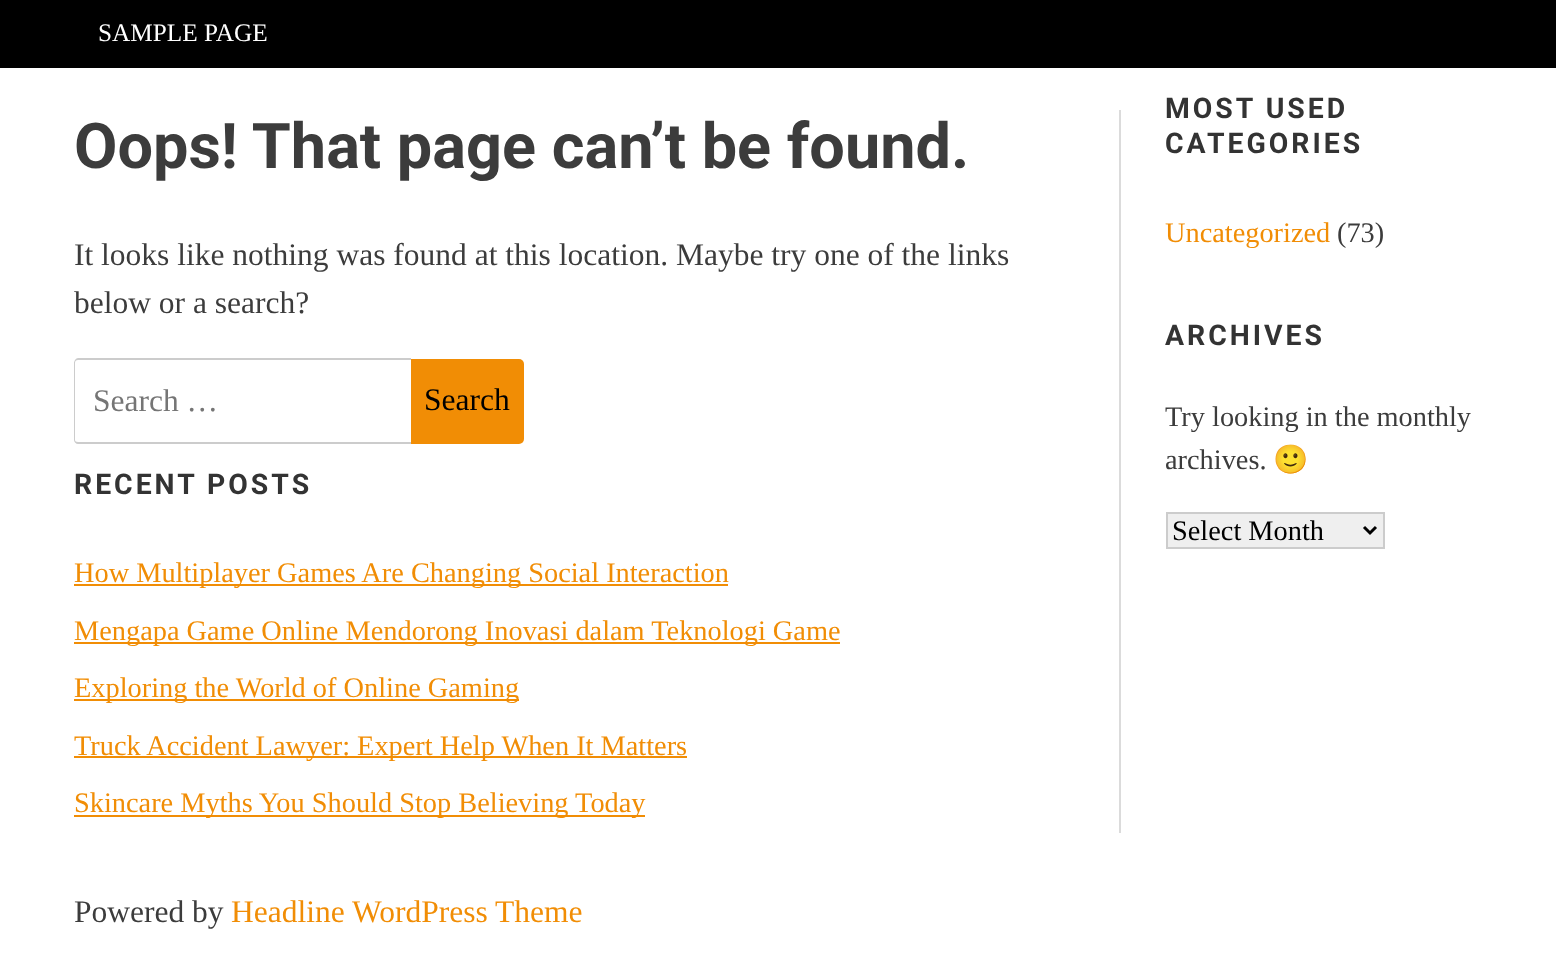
(async () => {
  const canvas = document.querySelector("canvas");
  canvas.width = 1556;
  canvas.height = 966;
  const ctx = canvas.getContext("2d");
  ctx.miterLimit = 4;
  ctx.fontKerning = "normal";
  let path;

  ctx.fillStyle = "#ffffff";
  ctx.fillRect(0, 0, 1556, 966);
  ctx.fillStyle = "#000000";
  ctx.fillRect(0, 0, 1556, 68);
  ctx.fillStyle = "#dbdbdb";
  ctx.fillRect(1119, 110, 2, 723);
  ctx.fillStyle = "#cccccc";
  path = new Path2D("M78 358H411V444H78C76 444 74 442 74 440V363C74 361 76 358 78 358ZM78 360H411V442H78C76 442 75 441 75 440V363C75 361 76 360 78 360Z");
  ctx.fill(path, "evenodd");
  ctx.fillStyle = "#f18d05";
  ctx.beginPath();
  ctx.roundRect(411, 359, 113, 85, [0, 5, 5, 0]);
  ctx.fill();
  for (const [x, y, w, h, color] of [
    [74, 584, 654, 2, "#f18d05"],
    [74, 642, 766, 2, "#f18d05"],
    [74, 699, 445, 2, "#f18d05"],
    [74, 756, 613, 2, "#f18d05"],
    [74, 815, 571, 2, "#f18d05"],
  ]) {
    ctx.fillStyle = color;
    ctx.fillRect(x, y, w, h);
  }
  ctx.fillStyle = "#efefef";
  ctx.beginPath();
  ctx.rect(1167, 513, 217, 35);
  ctx.fill();
  ctx.strokeStyle = "#cccccc";
  ctx.lineWidth = 2;
  ctx.stroke();
  path = new Path2D("M1364 527L1370 533L1376 527");
  ctx.strokeStyle = "#000000";
  ctx.lineWidth = 3;
  ctx.stroke(path);
  ctx.font = "25.25px Liberation Serif";
  ctx.fillStyle = "#ffffff";
  ctx.fillText("SAMPLE PAGE", 98, 41);
  ctx.font = "bold 63px Roboto";
  ctx.fillStyle = "#3c3c3c";
  ctx.fillText("Oops! That page can’t be found.", 74, 168);
  ctx.font = "31.5px Liberation Serif";
  ctx.fillText("It looks like nothing was found at this location. Maybe try one of the links", 74, 265);
  ctx.fillText("below or a search?", 74, 313);
  ctx.fillStyle = "#757575";
  ctx.fillText("Search …", 93, 411);
  ctx.fillStyle = "#000000";
  ctx.fillText("Search", 424, 410);
  ctx.letterSpacing = "3px";
  ctx.font = "bold 28.35px Roboto";
  ctx.fillStyle = "#333333";
  ctx.fillText("RECENT POSTS", 74, 494);
  ctx.letterSpacing = "0px";
  ctx.font = "28.35px Liberation Serif";
  ctx.fillStyle = "#f18d05";
  for (const [text, x, y] of [
    ["How Multiplayer Games Are Changing Social Interaction", 74, 582],
    ["Mengapa Game Online Mendorong Inovasi dalam Teknologi Game", 74, 640],
    ["Exploring the World of Online Gaming", 74, 697],
    ["Truck Accident Lawyer: Expert Help When It Matters", 74, 755],
    ["Skincare Myths You Should Stop Believing Today", 74, 812],
  ]) {
    ctx.fillText(text, x, y);
  }
  ctx.letterSpacing = "3px";
  ctx.font = "bold 28.35px Roboto";
  ctx.fillStyle = "#333333";
  ctx.fillText("MOST USED", 1165, 118);
  ctx.fillText("CATEGORIES", 1165, 153);
  ctx.letterSpacing = "0px";
  ctx.font = "28.35px Liberation Serif";
  ctx.fillStyle = "#f18d05";
  ctx.fillText("Uncategorized", 1165, 242);
  ctx.fillStyle = "#3c3c3c";
  ctx.fillText("(73)", 1337, 242);
  ctx.letterSpacing = "3px";
  ctx.font = "bold 28.35px Roboto";
  ctx.fillStyle = "#333333";
  ctx.fillText("ARCHIVES", 1165, 345);
  ctx.letterSpacing = "0px";
  ctx.font = "28.35px Liberation Serif";
  ctx.fillStyle = "#3c3c3c";
  ctx.fillText("Try looking in the monthly", 1165, 426);
  ctx.fillText("archives.", 1165, 469);
  ctx.font = "28.35px Noto Color Emoji";
  ctx.fillText("🙂", 1273, 469);
  ctx.font = "28.35px Liberation Serif";
  ctx.fillStyle = "#000000";
  ctx.fillText("Select Month", 1172, 540);
  ctx.font = "31.5px Liberation Serif";
  ctx.fillStyle = "#3c3c3c";
  ctx.fillText("Powered by", 74, 922);
  ctx.fillStyle = "#f18d05";
  ctx.fillText("Headline WordPress Theme", 231, 922);
})();
